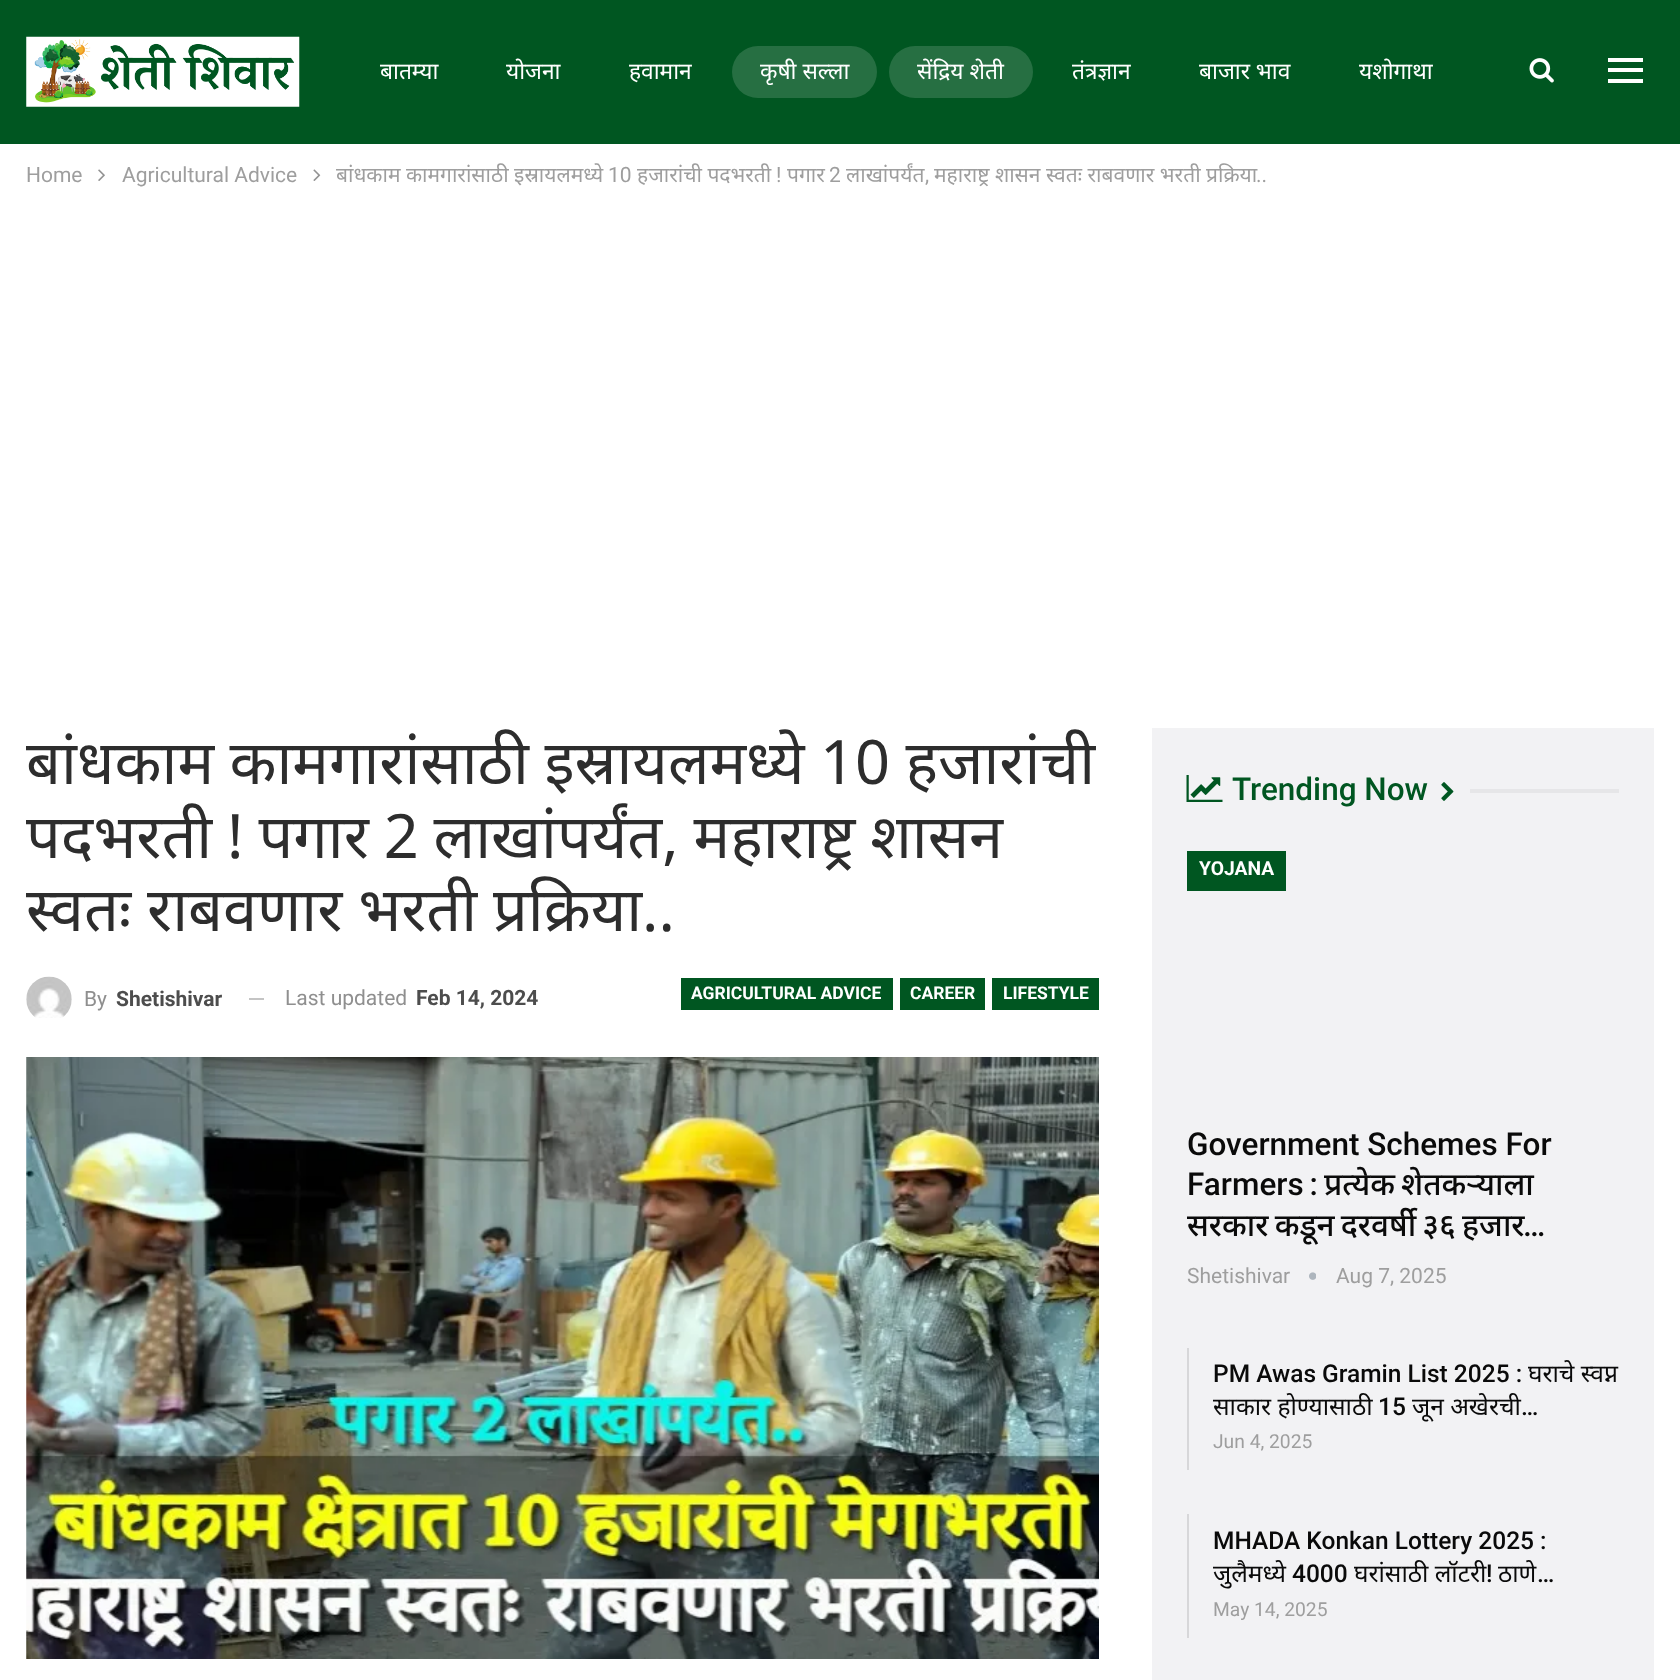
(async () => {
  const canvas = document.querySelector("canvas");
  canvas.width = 1680;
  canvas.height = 1680;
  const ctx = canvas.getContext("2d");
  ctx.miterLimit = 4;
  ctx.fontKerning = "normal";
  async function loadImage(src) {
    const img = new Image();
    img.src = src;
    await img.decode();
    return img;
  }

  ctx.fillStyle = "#ffffff";
  ctx.fillRect(0, 0, 1680, 1680);
  ctx.fillStyle = "#005621";
  ctx.fillRect(0, 0, 1680, 144);
  ctx.drawImage(await loadImage("img/1.png"), 26, 36, 274, 71);
  ctx.fillStyle = "#266f42";
  ctx.beginPath();
  ctx.roundRect(732, 46, 145, 52, 26);
  ctx.fill();
  ctx.beginPath();
  ctx.roundRect(889, 46, 144, 52, 26);
  ctx.fill();
  ctx.drawImage(await loadImage("img/2.png"), 1529, 58, 25, 25);
  for (const [x, y, w, h, color] of [
    [1608, 68, 35, 4, "#ffffff"],
    [1608, 58, 35, 4, "#ffffff"],
    [1608, 79, 35, 4, "#ffffff"],
  ]) {
    ctx.fillStyle = color;
    ctx.fillRect(x, y, w, h);
  }
  ctx.drawImage(await loadImage("img/3.png"), 98, 169, 7, 12);
  ctx.drawImage(await loadImage("img/4.png"), 313, 169, 8, 12);
  ctx.drawImage(await loadImage("img/5.png"), 26, 976, 46, 42);
  for (const [x, y, w, h, color] of [
    [249, 998, 15, 2, "#c4c4c4"],
    [681, 978, 212, 32, "#005621"],
    [900, 978, 85, 32, "#005621"],
    [992, 978, 107, 32, "#005621"],
  ]) {
    ctx.fillStyle = color;
    ctx.fillRect(x, y, w, h);
  }
  ctx.drawImage(await loadImage("img/6.png"), 26, 1057, 1073, 602);
  ctx.fillStyle = "#f2f2f4";
  ctx.fillRect(1152, 728, 502, 952);
  ctx.drawImage(await loadImage("img/7.png"), 1186, 775, 37, 27);
  ctx.drawImage(await loadImage("img/8.png"), 1441, 782, 13, 19);
  ctx.fillStyle = "#e6e6e8";
  ctx.fillRect(1470, 789, 149, 4);
  ctx.fillStyle = "#005621";
  ctx.fillRect(1187, 851, 99, 40);
  ctx.drawImage(await loadImage("img/9.png"), 1309, 1272, 7, 8);
  ctx.fillStyle = "#d7d7d9";
  ctx.fillRect(1187, 1348, 2, 122);
  ctx.fillRect(1187, 1514, 2, 124);
  ctx.font = "22.75px Noto Sans";
  ctx.fillStyle = "#ffffff";
  for (const [text, x, y] of [
    ["बातम्या", 380, 79],
    ["योजना", 506, 79],
    ["हवामान", 629, 79],
    ["कृषी सल्ला", 760, 79],
    ["सेंद्रिय शेती", 917, 79],
    ["तंत्रज्ञान", 1072, 79],
    ["बाजार भाव", 1199, 79],
    ["यशोगाथा", 1359, 79],
  ]) {
    ctx.fillText(text, x, y);
  }
  ctx.font = "21px Roboto";
  ctx.fillStyle = "#9e9e9e";
  ctx.fillText("Home", 26, 182);
  ctx.fillText("Agricultural Advice", 122, 182);
  ctx.font = "21px Noto Sans";
  ctx.fillText("बांधकाम कामगारांसाठी इस्रायलमध्ये", 336, 182);
  ctx.font = "21px Roboto";
  ctx.fillText("10", 608, 182);
  ctx.font = "21px Noto Sans";
  ctx.fillText("हजारांची पदभरती", 637, 182);
  ctx.font = "21px Roboto";
  ctx.fillText("!", 776, 182);
  ctx.font = "21px Noto Sans";
  ctx.fillText("पगार", 787, 182);
  ctx.font = "21px Roboto";
  ctx.fillText("2", 829, 182);
  ctx.font = "21px Noto Sans";
  ctx.fillText("लाखांपर्यंत", 846, 182);
  ctx.font = "21px Roboto";
  ctx.fillText(",", 925, 182);
  ctx.font = "21px Noto Sans";
  ctx.fillText("महाराष्ट्र शासन स्वतः राबवणार भरती प्रक्रिया", 934, 182);
  ctx.font = "21px Roboto";
  ctx.fillText("..", 1256, 182);
  ctx.wordSpacing = "-0.5px";
  ctx.font = "61.25px Noto Sans";
  ctx.fillStyle = "#2d2d2d";
  ctx.fillText("बांधकाम कामगारांसाठी इस्रायलमध्ये 10 हजारांची", 26, 784);
  ctx.wordSpacing = "-1px";
  ctx.fillText("पदभरती ! पगार 2 लाखांपर्यंत, महाराष्ट्र शासन", 26, 858);
  ctx.wordSpacing = "0px";
  ctx.fillText("स्वतः राबवणार भरती प्रक्रिया..", 26, 931);
  ctx.font = "21px Roboto";
  ctx.fillStyle = "#8f8f8f";
  ctx.fillText("By", 84, 1006);
  ctx.font = "bold 21px Roboto";
  ctx.fillStyle = "#4d4d4d";
  ctx.fillText("Shetishivar", 116, 1006);
  ctx.font = "21px Roboto";
  ctx.fillStyle = "#8f8f8f";
  ctx.fillText("Last updated", 285, 1005);
  ctx.font = "bold 21px Roboto";
  ctx.fillStyle = "#4d4d4d";
  ctx.fillText("Feb 14, 2024", 416, 1005);
  ctx.font = "bold 17.5px Roboto";
  ctx.fillStyle = "#ffffff";
  for (const [text, x, y] of [
    ["AGRICULTURAL ADVICE", 691, 999],
    ["CAREER", 910, 999],
    ["LIFESTYLE", 1003, 999],
  ]) {
    ctx.fillText(text, x, y);
  }
  ctx.font = "500 31.5px Roboto";
  ctx.fillStyle = "#005621";
  ctx.fillText("Trending Now", 1232, 800);
  ctx.font = "bold 19.25px Roboto";
  ctx.fillStyle = "#ffffff";
  ctx.fillText("YOJANA", 1199, 875);
  ctx.font = "500 31.5px Roboto";
  ctx.fillStyle = "#0a0a0a";
  ctx.fillText("Government Schemes For", 1187, 1155);
  ctx.wordSpacing = "-2px";
  ctx.fillText("Farmers :", 1187, 1195);
  ctx.wordSpacing = "0px";
  ctx.font = "500 31.5px Noto Sans";
  ctx.fillText("प्रत्येक", 1324, 1195);
  ctx.fillText("शेतकऱ्याला", 1401, 1195);
  ctx.wordSpacing = "-2px";
  ctx.fillText("सरकार कडून दरवर्षी ३६ हजार", 1187, 1236);
  ctx.wordSpacing = "0px";
  ctx.font = "500 31.5px Roboto";
  ctx.fillText("…", 1523, 1236);
  ctx.font = "21px Roboto";
  ctx.fillStyle = "#9e9e9e";
  ctx.fillText("Shetishivar", 1187, 1283);
  ctx.fillText("Aug 7, 2025", 1336, 1283);
  ctx.font = "500 24.5px Roboto";
  ctx.fillStyle = "#0a0a0a";
  ctx.fillText("PM Awas Gramin List 2025 :", 1213, 1382);
  ctx.font = "24.5px Noto Sans";
  ctx.fillText("घराचे स्वप्न", 1528, 1382);
  ctx.fillText("साकार होण्यासाठी", 1213, 1415);
  ctx.font = "500 24.5px Roboto";
  ctx.fillText("15", 1378, 1415);
  ctx.font = "24.5px Noto Sans";
  ctx.fillText("जून अखेरची", 1412, 1415);
  ctx.font = "500 24.5px Roboto";
  ctx.fillText("…", 1521, 1415);
  ctx.font = "19.25px Roboto";
  ctx.fillStyle = "#9e9e9e";
  ctx.fillText("Jun 4, 2025", 1213, 1448);
  ctx.font = "500 24.5px Roboto";
  ctx.fillStyle = "#0a0a0a";
  ctx.fillText("MHADA Konkan Lottery 2025 :", 1213, 1549);
  ctx.font = "24.5px Noto Sans";
  ctx.fillText("जुलैमध्ये", 1213, 1582);
  ctx.font = "500 24.5px Roboto";
  ctx.fillText("4000", 1292, 1582);
  ctx.font = "24.5px Noto Sans";
  ctx.fillText("घरांसाठी लॉटरी", 1354, 1582);
  ctx.font = "500 24.5px Roboto";
  ctx.fillText("!", 1486, 1582);
  ctx.font = "24.5px Noto Sans";
  ctx.fillText("ठाणे", 1498, 1582);
  ctx.font = "500 24.5px Roboto";
  ctx.fillText("…", 1537, 1582);
  ctx.font = "19.25px Roboto";
  ctx.fillStyle = "#9e9e9e";
  ctx.fillText("May 14, 2025", 1213, 1616);
})();
